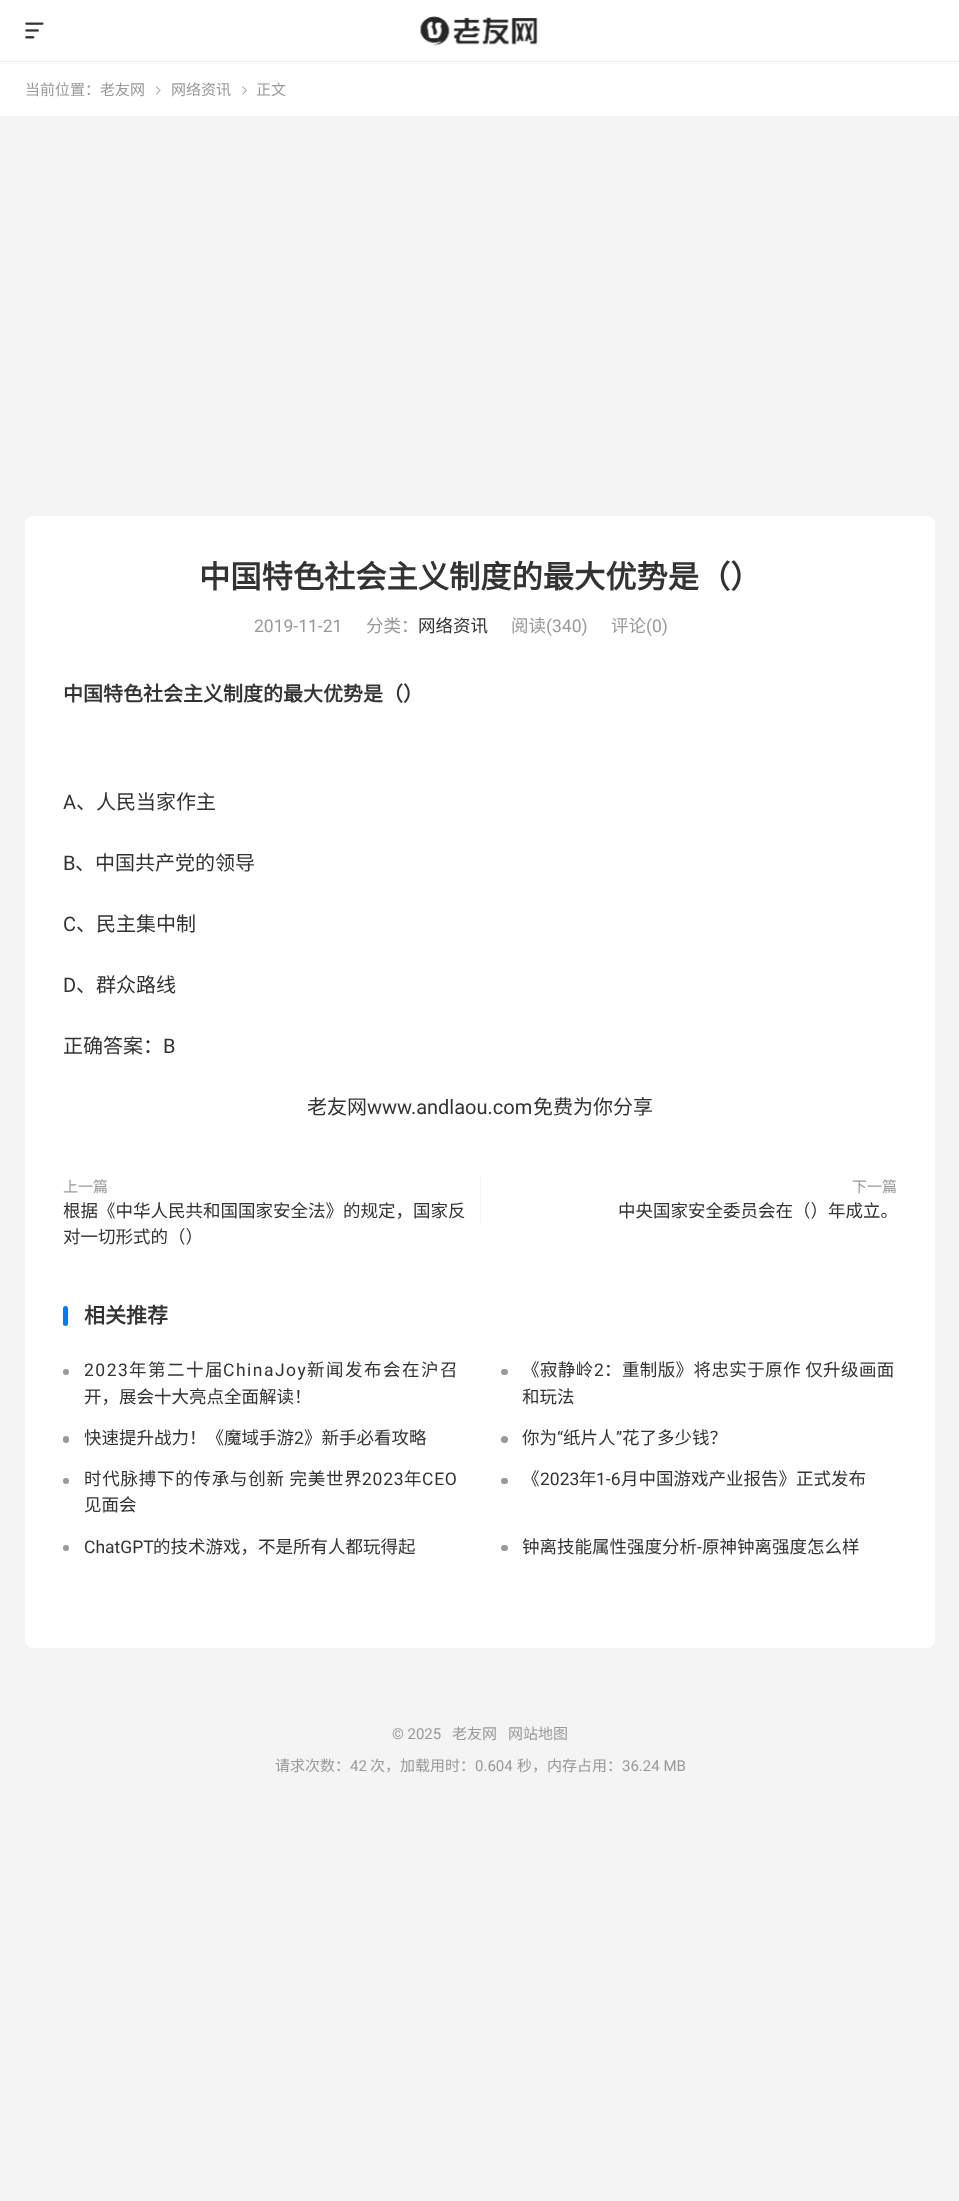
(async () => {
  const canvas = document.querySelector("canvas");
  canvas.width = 959;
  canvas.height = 2201;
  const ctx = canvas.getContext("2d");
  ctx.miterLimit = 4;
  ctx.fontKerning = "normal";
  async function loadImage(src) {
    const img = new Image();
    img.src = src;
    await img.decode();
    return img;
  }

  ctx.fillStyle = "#f4f4f4";
  ctx.fillRect(0, 0, 959, 2201);
  ctx.fillStyle = "#ffffff";
  ctx.fillRect(0, 0, 959, 63);
  ctx.drawImage(await loadImage("img/1.png"), 419, 16, 119, 30);
  ctx.fillStyle = "#eeeeee";
  ctx.beginPath();
  ctx.roundRect(0, 61, 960, 1, 0.5);
  ctx.fill();
  ctx.drawImage(await loadImage("img/2.png"), 25, 22, 19, 17);
  ctx.fillStyle = "#ffffff";
  ctx.fillRect(0, 64, 959, 52);
  ctx.fillStyle = "#fafafa";
  ctx.fillRect(0, 63, 959, 1);
  ctx.drawImage(await loadImage("img/3.png"), 156, 86, 5, 9);
  ctx.drawImage(await loadImage("img/4.png"), 242, 86, 5, 9);
  ctx.fillStyle = "#ffffff";
  ctx.beginPath();
  ctx.roundRect(25, 516, 910, 1132, 8);
  ctx.fill();
  ctx.fillStyle = "#f3f3f3";
  ctx.fillRect(480, 1176, 1, 49);
  ctx.fillStyle = "#007bff";
  ctx.beginPath();
  ctx.roundRect(63, 1306, 5, 20, 2.5);
  ctx.fill();
  ctx.fillStyle = "#999999";
  ctx.beginPath();
  ctx.arc(66, 1372, 3, 0, Math.PI * 2);
  ctx.fill();
  ctx.beginPath();
  ctx.roundRect(501, 1369, 7, 6, 3);
  ctx.fill();
  ctx.beginPath();
  ctx.roundRect(63, 1436, 6, 7, 3);
  ctx.fill();
  ctx.beginPath();
  ctx.arc(504.5, 1439.5, 3.5, 0, Math.PI * 2);
  ctx.fill();
  ctx.beginPath();
  ctx.arc(66, 1481, 3, 0, Math.PI * 2);
  ctx.fill();
  ctx.beginPath();
  ctx.roundRect(501, 1478, 7, 6, 3);
  ctx.fill();
  ctx.beginPath();
  ctx.arc(66, 1548, 3, 0, Math.PI * 2);
  ctx.fill();
  ctx.beginPath();
  ctx.roundRect(501, 1545, 7, 6, 3);
  ctx.fill();
  ctx.font = "15px Noto Sans CJK SC";
  for (const [text, x, y] of [
    ["当前位置：老友网", 25, 95],
    ["网络资讯", 171, 95],
    ["正文", 256, 95],
  ]) {
    ctx.fillText(text, x, y);
  }
  ctx.font = "bold 31.25px Noto Sans CJK SC";
  ctx.fillStyle = "#333333";
  ctx.fillText("中国特色社会主义制度的最大优势是（）", 199, 588);
  ctx.font = "17.5px Roboto";
  ctx.fillStyle = "#999999";
  ctx.fillText("2019-11-21", 254, 632);
  ctx.font = "17.5px Noto Sans CJK SC";
  ctx.fillText("分类：", 366, 632);
  ctx.fillStyle = "#333333";
  ctx.fillText("网络资讯", 418, 632);
  ctx.fillStyle = "#999999";
  ctx.fillText("阅读", 511, 632);
  ctx.font = "17.5px Roboto";
  ctx.fillText("(340)", 546, 632);
  ctx.font = "17.5px Noto Sans CJK SC";
  ctx.fillText("评论", 611, 632);
  ctx.font = "17.5px Roboto";
  ctx.fillText("(0)", 646, 632);
  ctx.font = "bold 20px Noto Sans CJK SC";
  ctx.fillStyle = "#333333";
  ctx.fillText("中国特色社会主义制度的最大优势是（）", 63, 701);
  ctx.font = "20px Roboto";
  ctx.fillText("A", 63, 809);
  ctx.font = "20px Noto Sans CJK SC";
  ctx.fillText("、人民当家作主", 76, 809);
  ctx.font = "20px Roboto";
  ctx.fillText("B", 63, 870);
  ctx.font = "20px Noto Sans CJK SC";
  ctx.fillText("、中国共产党的领导", 75, 870);
  ctx.font = "20px Roboto";
  ctx.fillText("C", 63, 931);
  ctx.font = "20px Noto Sans CJK SC";
  ctx.fillText("、民主集中制", 76, 931);
  ctx.font = "20px Roboto";
  ctx.fillText("D", 63, 992);
  ctx.font = "20px Noto Sans CJK SC";
  ctx.fillText("、群众路线", 76, 992);
  ctx.fillText("正确答案：", 63, 1053);
  ctx.font = "20px Roboto";
  ctx.fillText("B", 163, 1053);
  ctx.font = "20px Noto Sans CJK SC";
  ctx.fillText("老友网", 307, 1114);
  ctx.font = "20px Roboto";
  ctx.fillText("www.andlaou.com", 367, 1114);
  ctx.font = "20px Noto Sans CJK SC";
  ctx.fillText("免费为你分享", 533, 1114);
  ctx.font = "15px Noto Sans CJK SC";
  ctx.fillStyle = "#999999";
  ctx.fillText("上一篇", 63, 1192);
  ctx.font = "17.5px Noto Sans CJK SC";
  ctx.fillStyle = "#333333";
  ctx.fillText("根据《中华人民共和国国家安全法》的规定，国家反", 63, 1217);
  ctx.fillText("对一切形式的（）", 63, 1243);
  ctx.font = "15px Noto Sans CJK SC";
  ctx.fillStyle = "#999999";
  ctx.fillText("下一篇", 852, 1192);
  ctx.font = "17.5px Noto Sans CJK SC";
  ctx.fillStyle = "#333333";
  ctx.fillText("中央国家安全委员会在（）年成立。", 618, 1217);
  ctx.font = "bold 21px Noto Sans CJK SC";
  ctx.fillText("相关推荐", 84, 1323);
  ctx.letterSpacing = "1.5px";
  ctx.font = "17.5px Roboto";
  ctx.fillText("2023", 84, 1376);
  ctx.font = "17.5px Noto Sans CJK SC";
  ctx.fillText("年第二十届", 129, 1376);
  ctx.font = "17.5px Roboto";
  ctx.fillText("ChinaJoy", 223, 1376);
  ctx.font = "17.5px Noto Sans CJK SC";
  ctx.fillText("新闻发布会在沪召", 307, 1376);
  ctx.letterSpacing = "0px";
  ctx.fillText("开，展会十大亮点全面解读！", 84, 1403);
  ctx.letterSpacing = "0.4px";
  ctx.fillText("《寂静岭", 522, 1376);
  ctx.font = "17.5px Roboto";
  ctx.fillText("2", 594, 1376);
  ctx.font = "17.5px Noto Sans CJK SC";
  ctx.fillText("：重制版》将忠实于原作 仅升级画面", 604, 1376);
  ctx.letterSpacing = "0px";
  ctx.fillText("和玩法", 522, 1403);
  ctx.fillText("快速提升战力！《魔域手游", 84, 1444);
  ctx.font = "17.5px Roboto";
  ctx.fillText("2", 294, 1444);
  ctx.font = "17.5px Noto Sans CJK SC";
  ctx.fillText("》新手必看攻略", 304, 1444);
  ctx.fillText("你为", 522, 1444);
  ctx.font = "17.5px Roboto";
  ctx.fillText("“", 557, 1444);
  ctx.font = "17.5px Noto Sans CJK SC";
  ctx.fillText("纸片人", 563, 1444);
  ctx.font = "17.5px Roboto";
  ctx.fillText("”", 616, 1444);
  ctx.font = "17.5px Noto Sans CJK SC";
  ctx.fillText("花了多少钱？", 622, 1444);
  ctx.letterSpacing = "0.75px";
  ctx.fillText("时代脉搏下的传承与创新 完美世界", 84, 1485);
  ctx.font = "17.5px Roboto";
  ctx.fillText("2023", 362, 1485);
  ctx.font = "17.5px Noto Sans CJK SC";
  ctx.fillText("年", 404, 1485);
  ctx.font = "17.5px Roboto";
  ctx.fillText("CEO", 422, 1485);
  ctx.letterSpacing = "0px";
  ctx.font = "17.5px Noto Sans CJK SC";
  ctx.fillText("见面会", 84, 1511);
  ctx.fillText("《", 522, 1485);
  ctx.font = "17.5px Roboto";
  ctx.fillText("2023", 540, 1485);
  ctx.font = "17.5px Noto Sans CJK SC";
  ctx.fillText("年", 579, 1485);
  ctx.font = "17.5px Roboto";
  ctx.fillText("1-6", 596, 1485);
  ctx.font = "17.5px Noto Sans CJK SC";
  ctx.fillText("月中国游戏产业报告》正式发布", 621, 1485);
  ctx.font = "17.5px Roboto";
  ctx.fillText("ChatGPT", 84, 1553);
  ctx.font = "17.5px Noto Sans CJK SC";
  ctx.fillText("的技术游戏，不是所有人都玩得起", 153, 1553);
  ctx.fillText("钟离技能属性强度分析", 522, 1553);
  ctx.font = "17.5px Roboto";
  ctx.fillText("-", 697, 1553);
  ctx.font = "17.5px Noto Sans CJK SC";
  ctx.fillText("原神钟离强度怎么样", 702, 1553);
  ctx.font = "15px Roboto";
  ctx.fillStyle = "#999999";
  ctx.fillText("© 2025", 392, 1739);
  ctx.font = "15px Noto Sans CJK SC";
  for (const [text, x, y] of [
    ["老友网", 452, 1739],
    ["网站地图", 508, 1739],
    ["请求次数：", 275, 1771],
  ]) {
    ctx.fillText(text, x, y);
  }
  ctx.font = "15px Roboto";
  ctx.fillText("42", 350, 1771);
  ctx.font = "15px Noto Sans CJK SC";
  ctx.fillText("次，加载用时：", 370, 1771);
  ctx.font = "15px Roboto";
  ctx.fillText("0.604", 475, 1771);
  ctx.font = "15px Noto Sans CJK SC";
  ctx.fillText("秒，内存占用：", 517, 1771);
  ctx.font = "15px Roboto";
  ctx.fillText("36.24 MB", 622, 1771);
})();
